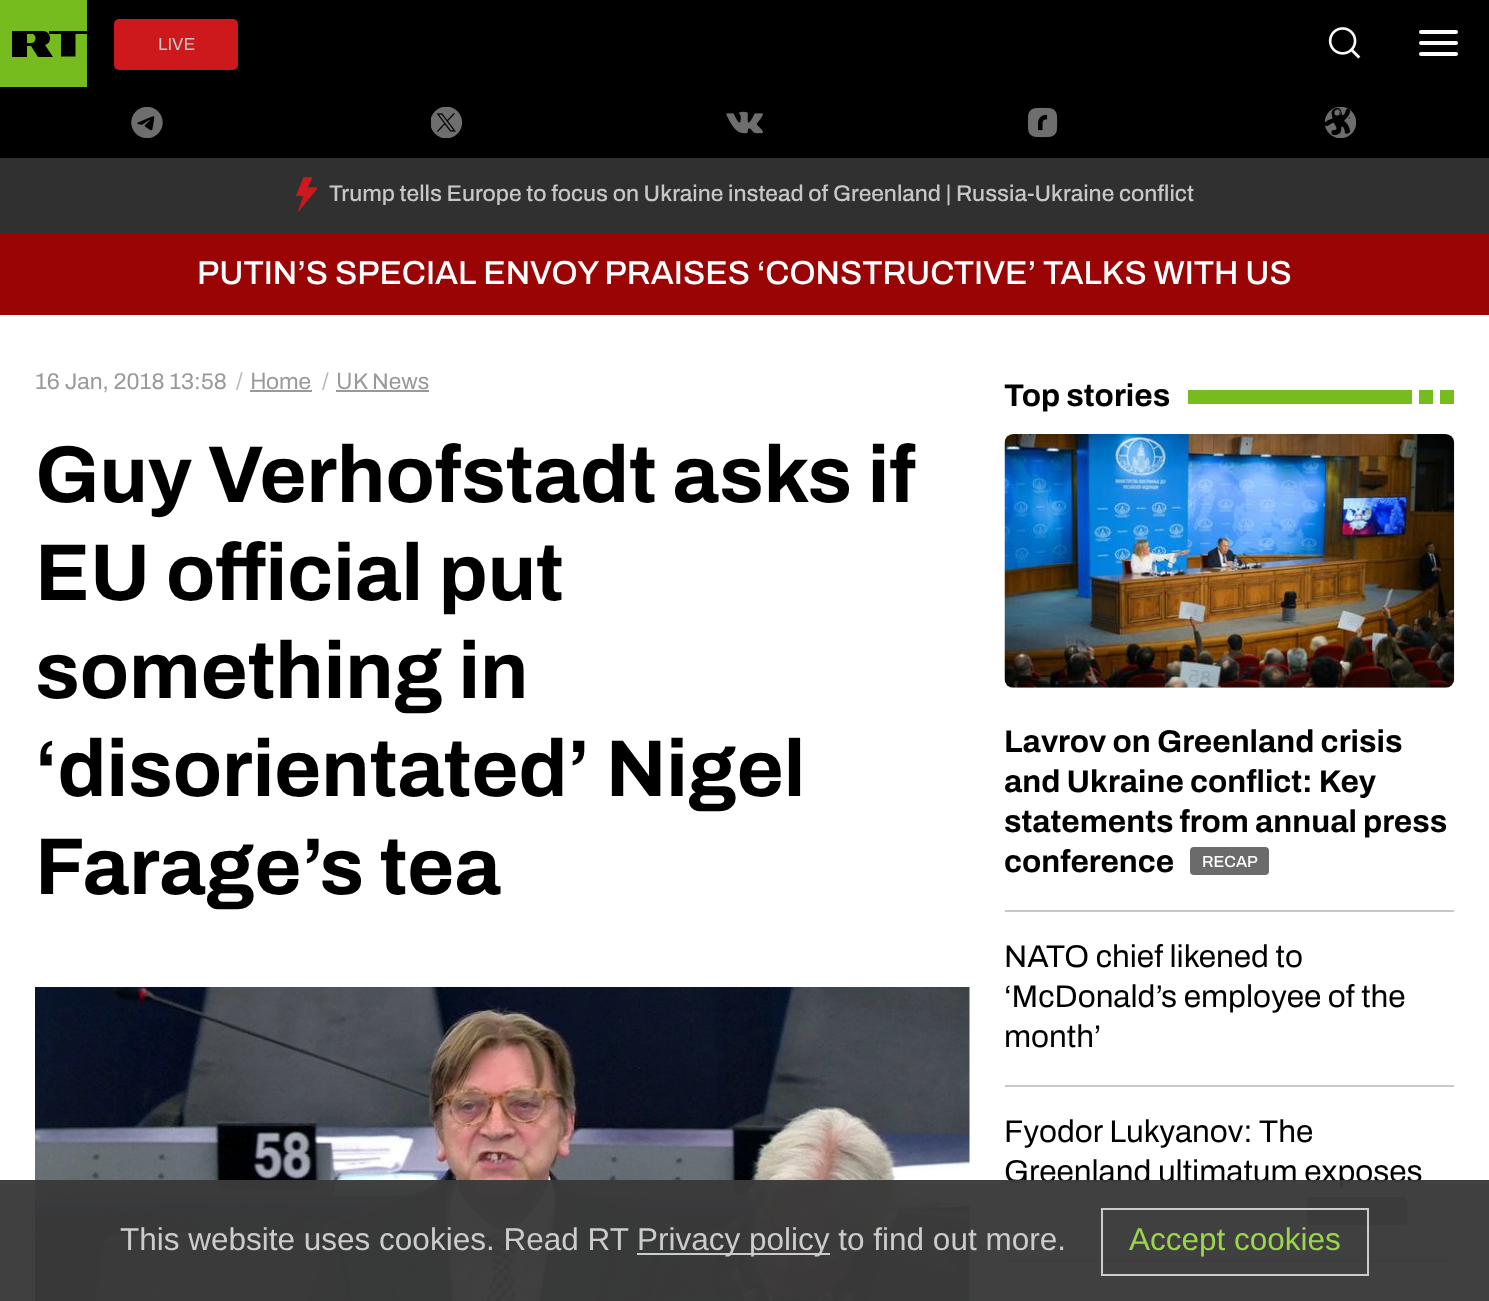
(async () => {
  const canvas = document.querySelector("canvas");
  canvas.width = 1489;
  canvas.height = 1301;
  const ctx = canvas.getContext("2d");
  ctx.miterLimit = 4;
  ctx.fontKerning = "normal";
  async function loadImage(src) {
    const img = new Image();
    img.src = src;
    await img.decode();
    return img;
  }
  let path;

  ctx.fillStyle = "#ffffff";
  ctx.fillRect(0, 0, 1489, 1301);
  ctx.fillStyle = "#000000";
  ctx.fillRect(0, 0, 1489, 158);
  ctx.fillStyle = "#77bc1f";
  ctx.fillRect(0, 0, 87, 87);
  ctx.fillStyle = "#000000";
  path = new Path2D("M43 31C51 31 53 43 45 45L53 57H38L31 46H27V57H12V31ZM32 43C36 42 37 36 33 34H27V43Z");
  ctx.fill(path);
  path = new Path2D("M49 31V34H61V56.5H75.5V34H87V31Z");
  ctx.fill(path);
  ctx.fillStyle = "#cd181c";
  ctx.beginPath();
  ctx.roundRect(114, 19, 124, 51, 5);
  ctx.fill();
  ctx.drawImage(await loadImage("img/1.png"), 1328, 27, 33, 32);
  ctx.fillStyle = "#fcfcfc";
  ctx.beginPath();
  ctx.roundRect(1419, 30, 39, 4, 2);
  ctx.fill();
  ctx.beginPath();
  ctx.roundRect(1419, 41, 39, 4, 2);
  ctx.fill();
  ctx.beginPath();
  ctx.roundRect(1419, 52, 39, 4, 2);
  ctx.fill();
  ctx.drawImage(await loadImage("img/2.png"), 131, 107, 32, 31);
  ctx.drawImage(await loadImage("img/3.png"), 431, 107, 31, 31);
  ctx.drawImage(await loadImage("img/4.png"), 726, 111, 37, 23);
  ctx.drawImage(await loadImage("img/5.png"), 1027, 107, 31, 31);
  ctx.drawImage(await loadImage("img/6.png"), 1325, 107, 31, 31);
  ctx.fillStyle = "#303030";
  ctx.fillRect(0, 158, 1489, 75);
  ctx.drawImage(await loadImage("img/7.png"), 296, 177, 21, 35);
  for (const [x, y, w, h, color] of [
    [0, 233, 1489, 82, "#9a0404"],
    [250, 390, 62, 2, "#999999"],
    [336, 390, 93, 2, "#999999"],
  ]) {
    ctx.fillStyle = color;
    ctx.fillRect(x, y, w, h);
  }
  ctx.drawImage(await loadImage("img/8.png"), 35, 987, 935, 314);
  for (const [x, y, w, h, color] of [
    [1188, 390, 266, 14, "#77bc1f"],
    [1433, 390, 7, 14, "#ffffff"],
    [1412, 390, 7, 14, "#ffffff"],
    [1005, 910, 449, 2, "#c7c7c7"],
  ]) {
    ctx.fillStyle = color;
    ctx.fillRect(x, y, w, h);
  }
  ctx.drawImage(await loadImage("img/9.png"), 1004, 434, 451, 254);
  ctx.fillStyle = "#6b6b6b";
  ctx.beginPath();
  ctx.roundRect(1190, 847, 79, 28, 4);
  ctx.fill();
  ctx.fillStyle = "#c7c7c7";
  ctx.fillRect(1005, 1085, 449, 2);
  ctx.fillRect(1005, 1260, 449, 2);
  ctx.fillStyle = "#6b6b6b";
  ctx.beginPath();
  ctx.roundRect(1307, 1197, 100, 28, 4);
  ctx.fill();
  ctx.font = "17.5px Archivo";
  ctx.fillStyle = "#c7c7c7";
  ctx.fillText("LIVE", 158, 50);
  ctx.font = "500 22.75px Archivo";
  ctx.fillText("Trump tells Europe to focus on Ukraine instead of Greenland | Russia-Ukraine conflict", 329, 201);
  ctx.font = "500 33.25px Archivo";
  ctx.fillStyle = "#ffffff";
  ctx.fillText("PUTIN’S SPECIAL ENVOY PRAISES ‘CONSTRUCTIVE’ TALKS WITH US", 197, 284);
  ctx.font = "22.75px Archivo";
  ctx.fillStyle = "#999999";
  ctx.fillText("16 Jan, 2018 13:58", 35, 389);
  ctx.fillStyle = "#b8b8b8";
  ctx.fillText("/", 236, 389);
  ctx.font = "22.75px Noto Sans";
  ctx.fillStyle = "#999999";
  ctx.fillText("H", 250, 389);
  ctx.font = "22.75px Archivo";
  ctx.fillText("ome", 266, 389);
  ctx.fillStyle = "#b8b8b8";
  ctx.fillText("/", 322, 389);
  ctx.font = "22.75px Noto Sans";
  ctx.fillStyle = "#999999";
  ctx.fillText("U", 336, 389);
  ctx.font = "22.75px Archivo";
  ctx.fillText("K News", 353, 389);
  ctx.font = "bold 80.5px Archivo";
  ctx.fillStyle = "#000000";
  for (const [text, x, y] of [
    ["Guy Verhofstadt asks if", 35, 502],
    ["EU official put", 35, 600],
    ["something in", 35, 698],
    ["‘disorientated’ Nigel", 35, 796],
    ["Farage’s tea", 35, 894],
  ]) {
    ctx.fillText(text, x, y);
  }
  ctx.font = "bold 31.5px Archivo";
  for (const [text, x, y] of [
    ["Top stories", 1004, 406],
    ["Lavrov on Greenland crisis", 1004, 752],
    ["and Ukraine conflict: Key", 1004, 792],
    ["statements from annual press", 1004, 832],
    ["conference", 1004, 872],
  ]) {
    ctx.fillText(text, x, y);
  }
  ctx.font = "500 16px Archivo";
  ctx.fillStyle = "#ffffff";
  ctx.fillText("RECAP", 1202, 867);
  ctx.font = "31.5px Archivo";
  ctx.fillStyle = "#000000";
  for (const [text, x, y] of [
    ["NATO chief likened to", 1004, 967],
    ["‘McDonald’s employee of the", 1004, 1007],
    ["month’", 1004, 1047],
    ["Fyodor Lukyanov: The", 1004, 1142],
    ["Greenland ultimatum exposes", 1004, 1182],
  ]) {
    ctx.fillText(text, x, y);
  }
  ctx.fillStyle = "rgba(58, 58, 58, 0.97)";
  ctx.fillRect(0, 1180, 1489, 121);
  ctx.font = "31.5px Liberation Sans";
  ctx.fillStyle = "#cccccd";
  ctx.fillText("This website uses cookies. Read RT", 120, 1250);
  ctx.fillStyle = "rgba(209, 209, 209, 0.97)";
  ctx.fillRect(637, 1253, 193, 2);
  ctx.fillStyle = "#cccccd";
  ctx.fillText("Privacy policy to find out more.", 637, 1250);
  ctx.strokeStyle = "rgba(209, 209, 209, 0.97)";
  ctx.lineWidth = 2;
  ctx.strokeRect(1102, 1209, 266, 66);
  ctx.fillStyle = "#99d54d";
  ctx.fillText("Accept cookies", 1129, 1250);
})();
